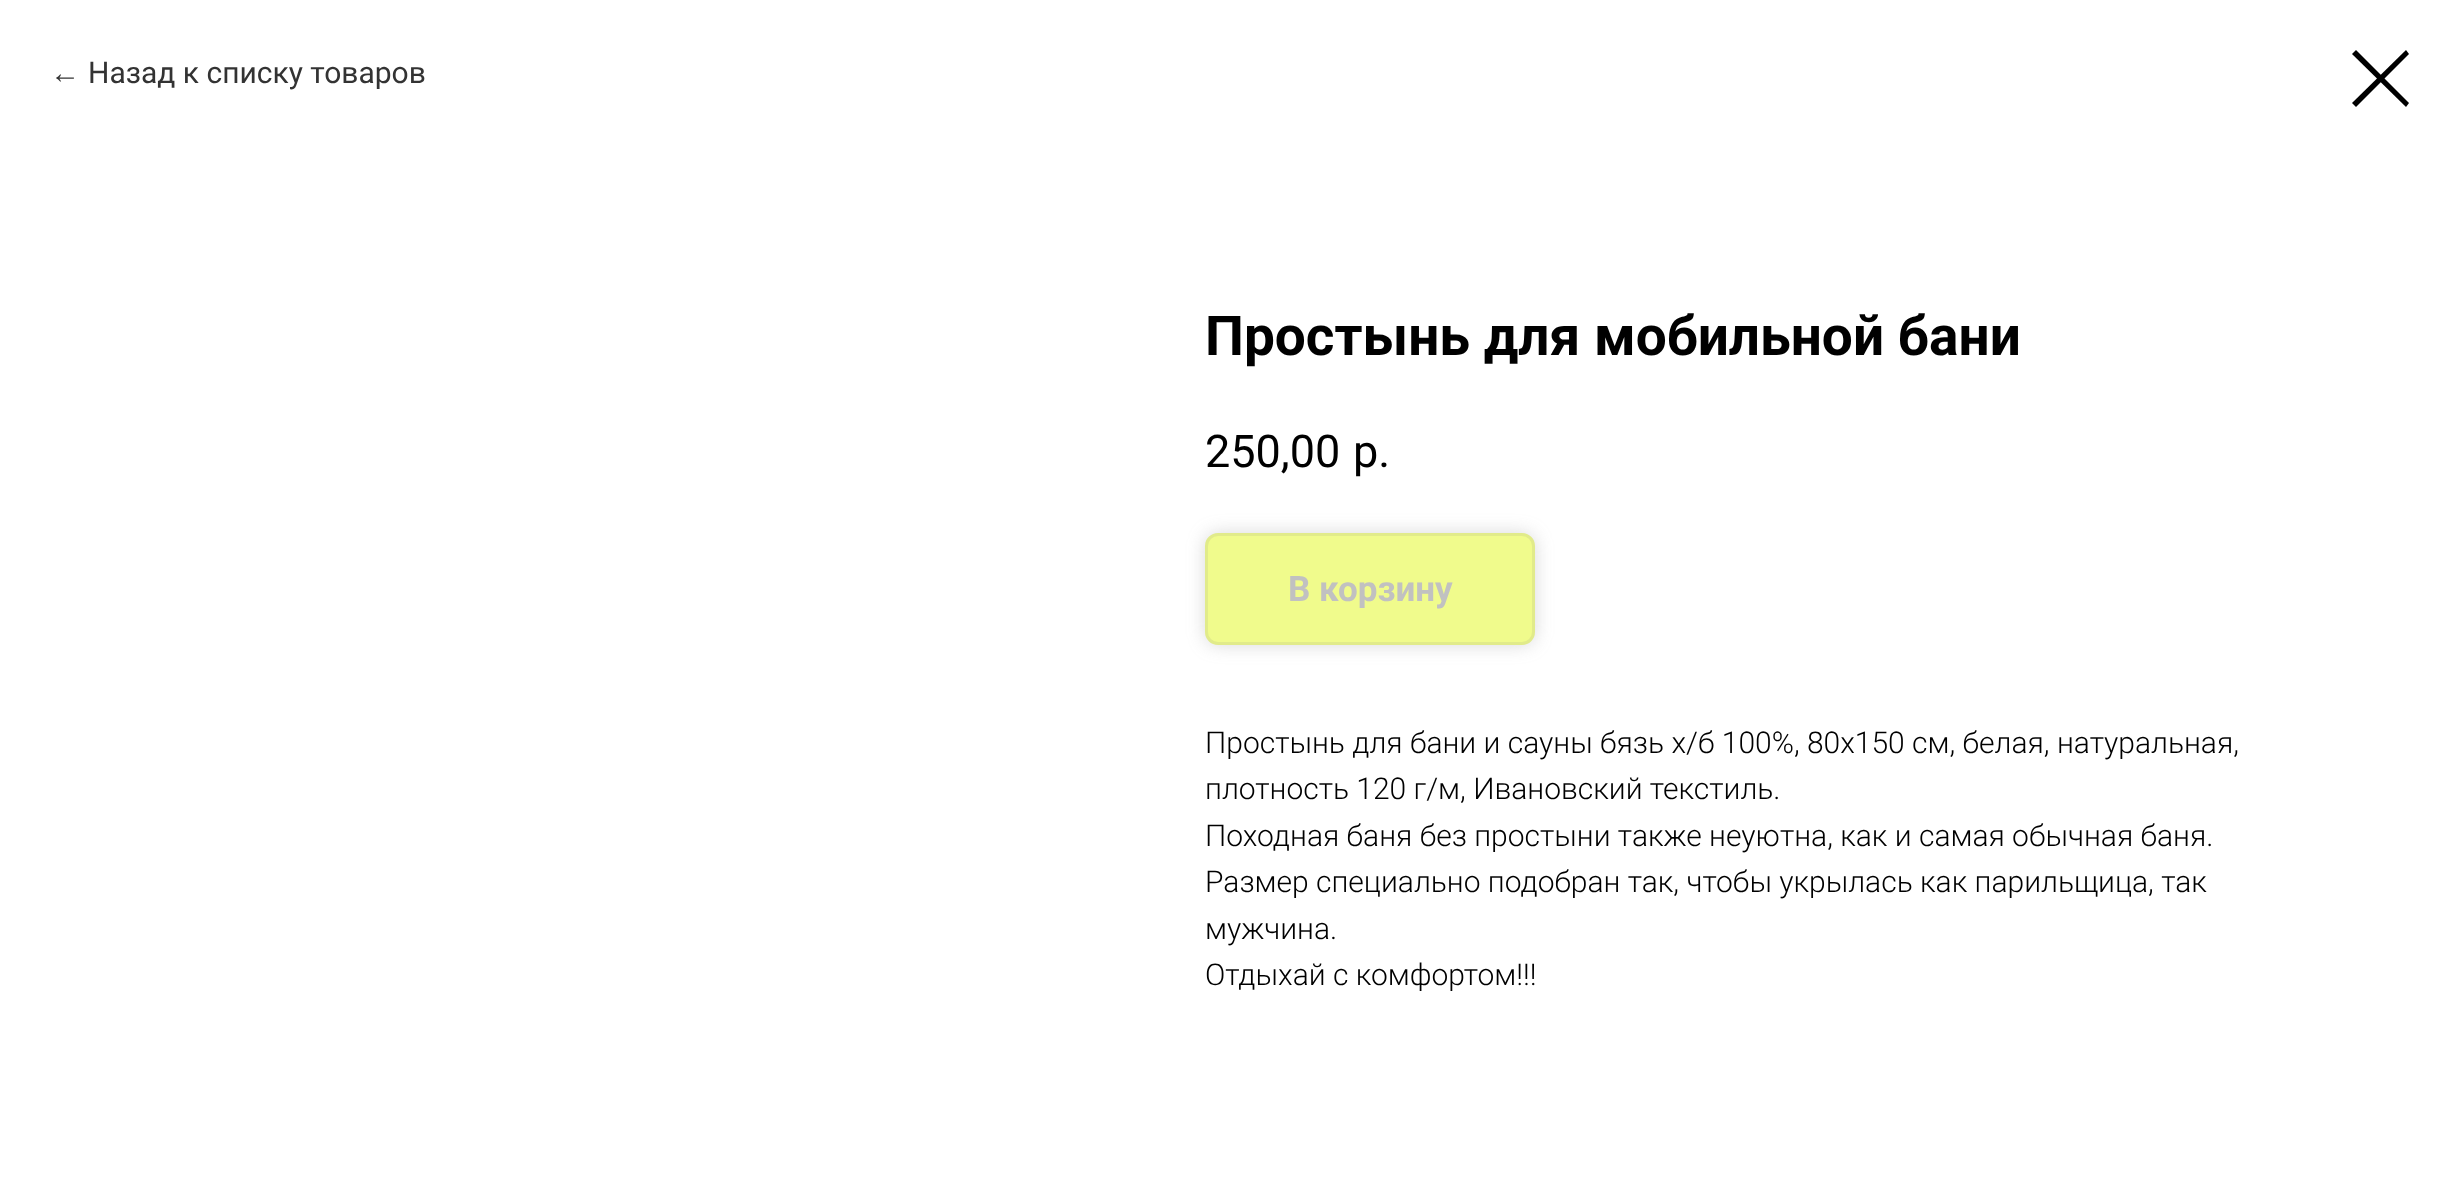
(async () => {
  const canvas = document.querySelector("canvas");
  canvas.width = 2459;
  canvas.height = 1190;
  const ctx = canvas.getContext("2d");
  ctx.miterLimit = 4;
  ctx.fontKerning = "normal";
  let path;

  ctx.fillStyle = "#ffffff";
  ctx.fillRect(0, 0, 2459, 1190);
  ctx.fillStyle = "#000000";
  path = new Path2D("M2352 54L2356 50L2409 103L2406 107Z");
  ctx.fill(path, "evenodd");
  path = new Path2D("M2406 50L2409 54L2356 107L2352 103Z");
  ctx.fill(path, "evenodd");
  ctx.fillStyle = "rgba(128, 128, 128, 0.3)";
  ctx.filter = "blur(9px)";
  ctx.beginPath();
  ctx.roundRect(1205, 533, 330, 112, 13);
  ctx.fill();
  ctx.filter = "none";
  ctx.fillStyle = "#f0fb8c";
  ctx.beginPath();
  ctx.roundRect(1206.5, 534.5, 327, 109, 11.5);
  ctx.fill();
  ctx.strokeStyle = "#e1eb8a";
  ctx.lineWidth = 3;
  ctx.stroke();
  ctx.font = "30px Liberation Sans";
  ctx.fillStyle = "#333333";
  ctx.fillText("←", 50, 83);
  ctx.font = "30px Roboto";
  ctx.fillText("Назад к списку товаров", 88, 83);
  ctx.font = "bold 55px Roboto";
  ctx.fillStyle = "#000000";
  ctx.fillText("Простынь для мобильной бани", 1205, 355);
  ctx.font = "45px Roboto";
  ctx.fillText("250,00", 1205, 467);
  ctx.fillText("р.", 1353, 467);
  ctx.font = "bold 35px Roboto";
  ctx.fillStyle = "#c1c1c1";
  ctx.fillText("В корзину", 1288, 601);
  ctx.font = "300 30px Roboto";
  ctx.fillStyle = "#000000";
  for (const [text, x, y] of [
    ["Простынь для бани и сауны бязь х/б 100%, 80х150 см, белая, натуральная,", 1205, 753],
    ["плотность 120 г/м, Ивановский текстиль.", 1205, 799],
    ["Походная баня без простыни также неуютна, как и самая обычная баня.", 1205, 846],
    ["Размер специально подобран так, чтобы укрылась как парильщица, так", 1205, 892],
    ["мужчина.", 1205, 939],
    ["Отдыхай с комфортом!!!", 1205, 985],
  ]) {
    ctx.fillText(text, x, y);
  }
})();
